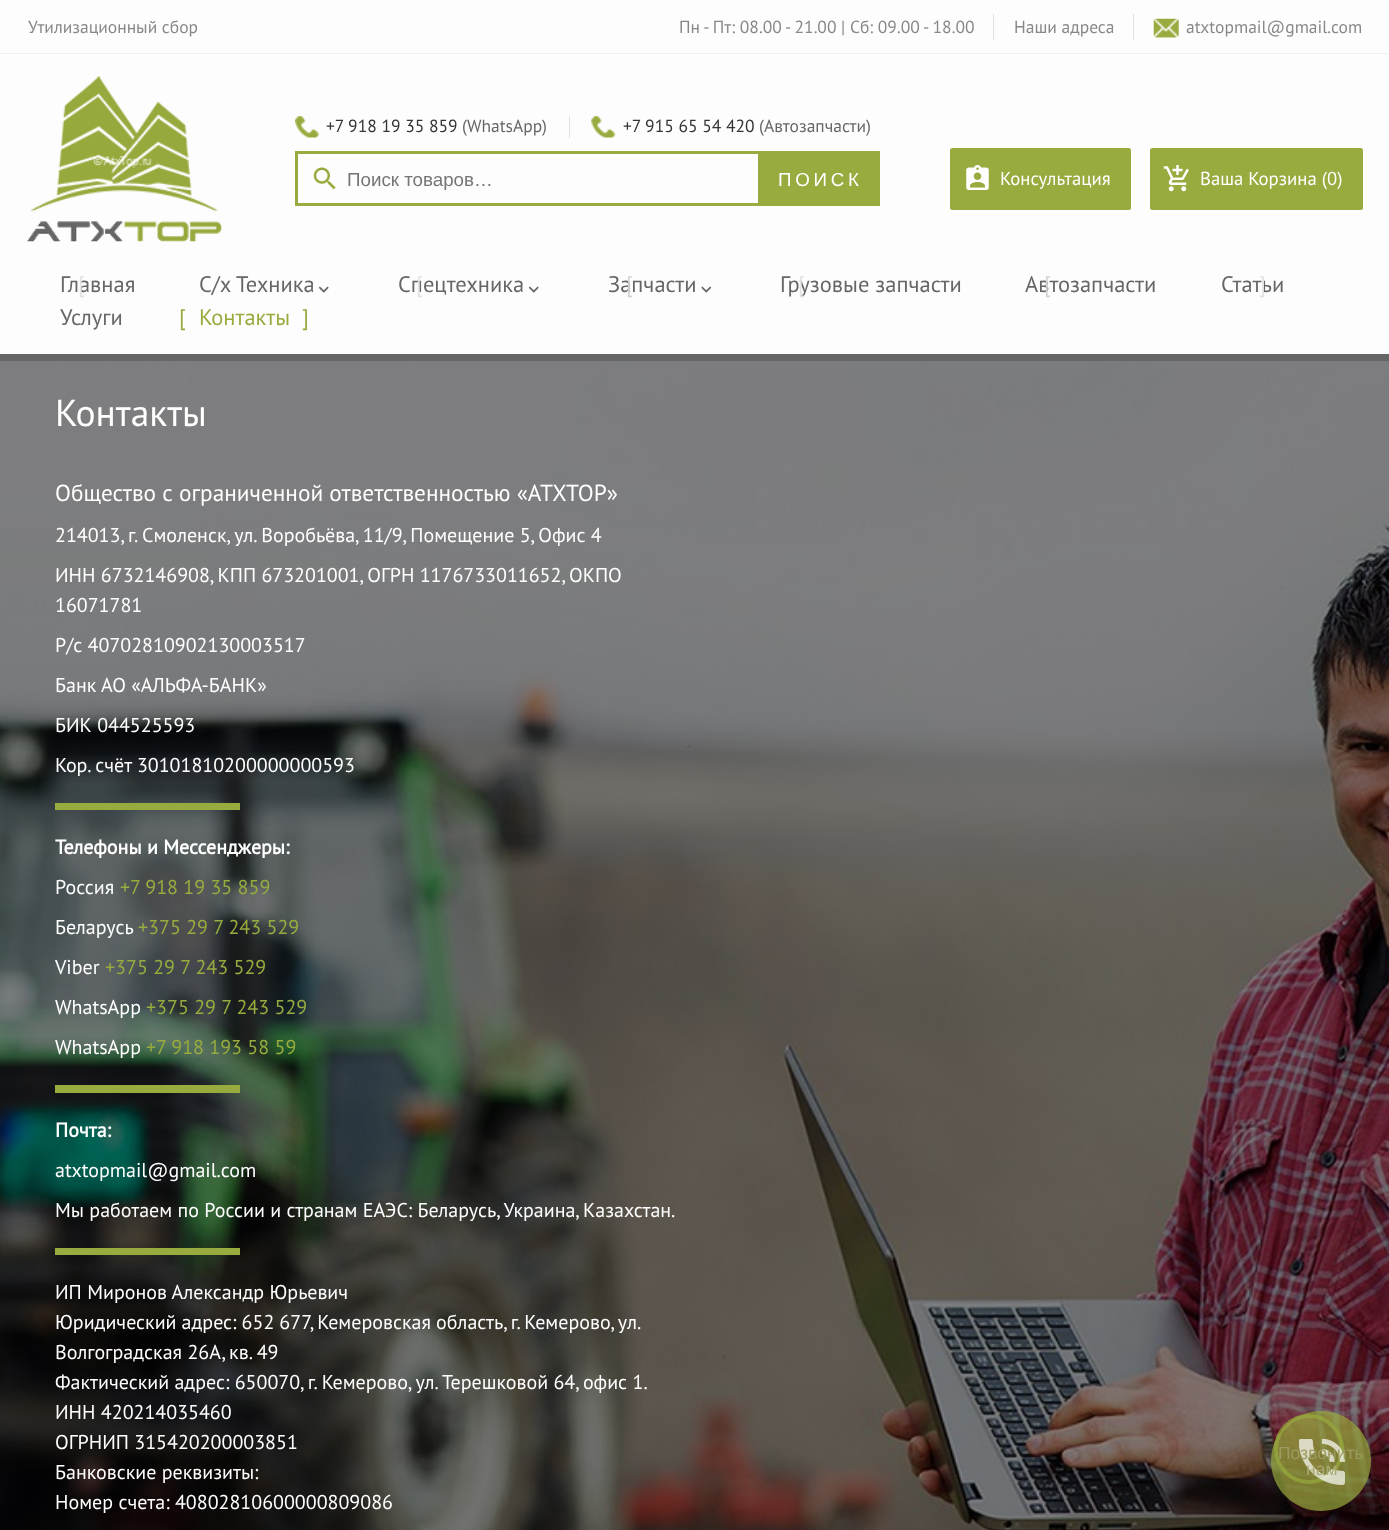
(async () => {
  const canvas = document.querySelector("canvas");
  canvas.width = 1389;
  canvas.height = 1530;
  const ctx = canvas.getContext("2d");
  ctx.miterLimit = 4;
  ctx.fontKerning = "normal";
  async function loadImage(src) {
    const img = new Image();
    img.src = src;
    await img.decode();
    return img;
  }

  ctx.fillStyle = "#fdfdfd";
  ctx.fillRect(0, 0, 1389, 1530);
  for (const [x, y, w, h, color] of [
    [0, 53, 1389, 1, "#f0f0f0"],
    [993, 14, 1, 26, "#e2e2e2"],
    [1133, 14, 1, 26, "#e2e2e2"],
  ]) {
    ctx.fillStyle = color;
    ctx.fillRect(x, y, w, h);
  }
  ctx.drawImage(await loadImage("img/1.png"), 1153, 18, 26, 20);
  ctx.drawImage(await loadImage("img/2.png"), 27, 76, 195, 166);
  ctx.drawImage(await loadImage("img/3.png"), 295, 116, 24, 22);
  ctx.fillRect(569, 116, 1, 22);
  ctx.drawImage(await loadImage("img/4.png"), 591, 116, 25, 22);
  ctx.drawImage(await loadImage("img/5.png"), 313, 167, 23, 23);
  ctx.strokeStyle = "#98ab3f";
  ctx.lineWidth = 3;
  ctx.strokeRect(296.5, 152.5, 463, 52);
  ctx.fillStyle = "#98ab3f";
  ctx.fillRect(761, 151, 119, 55);
  ctx.beginPath();
  ctx.roundRect(950, 148, 181, 62, 2.5);
  ctx.fill();
  ctx.drawImage(await loadImage("img/6.png"), 966, 165, 23, 25);
  ctx.beginPath();
  ctx.roundRect(1150, 148, 213, 62, 2.5);
  ctx.fill();
  ctx.drawImage(await loadImage("img/7.png"), 1163, 165, 26, 27);
  ctx.fillStyle = "#666666";
  ctx.fillRect(0, 354, 1389, 7);
  ctx.drawImage(await loadImage("img/8.png"), 318, 286, 11, 7);
  ctx.drawImage(await loadImage("img/8.png"), 528, 286, 11, 7);
  ctx.drawImage(await loadImage("img/9.png"), 701, 286, 11, 7);
  ctx.drawImage(await loadImage("img/10.png"), 0, 361, 1389, 1169);
  for (const [x, y, w, h, color] of [
    [55, 803, 185, 7, "#98ab3f"],
    [55, 1085, 185, 8, "#98ab3f"],
    [55, 1248, 185, 7, "#98ab3f"],
  ]) {
    ctx.fillStyle = color;
    ctx.fillRect(x, y, w, h);
  }
  ctx.beginPath();
  ctx.arc(1309, 1449, 33, 0, Math.PI * 2);
  ctx.strokeStyle = "rgba(152, 171, 63, 0.7)";
  ctx.lineWidth = 4;
  ctx.stroke();
  ctx.fillStyle = "rgba(152, 171, 63, 0.7)";
  ctx.beginPath();
  ctx.arc(1321, 1461, 50, 0, Math.PI * 2);
  ctx.fill();
  ctx.drawImage(await loadImage("img/11.png"), 1299, 1439, 46, 46);
  ctx.font = "17.5px PT Sans";
  ctx.fillStyle = "#888888";
  for (const [text, x, y] of [
    ["Утилизационный сбор", 28, 33],
    ["Пн - Пт: 08.00 - 21.00 | Сб: 09.00 - 18.00", 679, 33],
    ["Наши адреса", 1014, 33],
    ["atxtopmail@gmail.com", 1186, 33],
  ]) {
    ctx.fillText(text, x, y);
  }
  ctx.fillStyle = "#333333";
  ctx.fillText("+7 918 19 35 859", 326, 132);
  ctx.fillStyle = "#666666";
  ctx.fillText("(WhatsApp)", 462, 132);
  ctx.fillStyle = "#333333";
  ctx.fillText("+7 915 65 54 420", 623, 132);
  ctx.fillStyle = "#666666";
  ctx.fillText("(Автозапчасти)", 759, 132);
  ctx.font = "18.75px Liberation Sans";
  ctx.fillStyle = "#757575";
  ctx.fillText("Поиск товаров…", 347, 186);
  ctx.letterSpacing = "3.75px";
  ctx.fillStyle = "#ffffff";
  ctx.fillText("ПОИСК", 778, 186);
  ctx.letterSpacing = "0px";
  ctx.font = "18.75px PT Sans";
  ctx.fillText("Консультация", 1000, 185);
  ctx.fillText("Ваша Корзина (0)", 1200, 185);
  ctx.font = "22.5px PT Sans";
  ctx.fillStyle = "#666666";
  ctx.fillText("Главная", 60, 292);
  ctx.fillStyle = "#e3e3e3";
  ctx.fillText("[", 78, 292);
  ctx.fillStyle = "#666666";
  ctx.fillText("С/х Техника", 199, 292);
  ctx.fillText("Спецтехника", 398, 292);
  ctx.fillStyle = "#e3e3e3";
  ctx.fillText("[", 416, 292);
  ctx.fillStyle = "#666666";
  ctx.fillText("Запчасти", 608, 292);
  ctx.fillStyle = "#d3d3d3";
  ctx.fillText("[", 626, 292);
  ctx.fillStyle = "#666666";
  ctx.fillText("Грузовые запчасти", 780, 292);
  ctx.fillStyle = "#e3e3e3";
  ctx.fillText("[", 798, 292);
  ctx.fillStyle = "#666666";
  ctx.fillText("Автозапчасти", 1025, 292);
  ctx.fillStyle = "#d3d3d3";
  ctx.fillText("[", 1044, 292);
  ctx.fillStyle = "#666666";
  ctx.fillText("Статьи", 1221, 292);
  ctx.fillStyle = "#e3e3e3";
  ctx.fillText("]", 1259, 292);
  ctx.fillStyle = "#666666";
  ctx.fillText("Услуги", 60, 325);
  ctx.fillStyle = "#98ab3f";
  for (const [text, x, y] of [
    ["[", 179, 325],
    ["Контакты", 199, 325],
    ["]", 302, 325],
  ]) {
    ctx.fillText(text, x, y);
  }
  ctx.font = "37.5px PT Sans";
  ctx.fillStyle = "#ffffff";
  ctx.fillText("Контакты", 55, 426);
  ctx.font = "23.3px PT Sans";
  ctx.fillText("Общество с ограниченной ответственностью «АТХТОР»", 55, 501);
  ctx.font = "20px PT Sans";
  for (const [text, x, y] of [
    ["214013, г. Смоленск, ул. Воробьёва, 11/9, Помещение 5, Офис 4", 55, 542],
    ["ИНН 6732146908, КПП 673201001, ОГРН 1176733011652, ОКПО", 55, 582],
    ["16071781", 55, 612],
    ["Р/с 40702810902130003517", 55, 652],
    ["Банк АО «АЛЬФА-БАНК»", 55, 692],
    ["БИК 044525593", 55, 732],
    ["Кор. счёт 30101810200000000593", 55, 772],
  ]) {
    ctx.fillText(text, x, y);
  }
  ctx.font = "bold 20px PT Sans";
  ctx.fillText("Телефоны и Мессенджеры:", 55, 854);
  ctx.font = "20px PT Sans";
  ctx.fillText("Россия", 55, 894);
  ctx.fillStyle = "#98ab3f";
  ctx.fillText("+7 918 19 35 859", 120, 894);
  ctx.fillStyle = "#ffffff";
  ctx.fillText("Беларусь", 55, 934);
  ctx.fillStyle = "#98ab3f";
  ctx.fillText("+375 29 7 243 529", 138, 934);
  ctx.fillStyle = "#ffffff";
  ctx.fillText("Viber", 55, 974);
  ctx.fillStyle = "#98ab3f";
  ctx.fillText("+375 29 7 243 529", 105, 974);
  ctx.fillStyle = "#ffffff";
  ctx.fillText("WhatsApp", 55, 1014);
  ctx.fillStyle = "#98ab3f";
  ctx.fillText("+375 29 7 243 529", 146, 1014);
  ctx.fillStyle = "#ffffff";
  ctx.fillText("WhatsApp", 55, 1054);
  ctx.fillStyle = "#98ab3f";
  ctx.fillText("+7 918 193 58 59", 146, 1054);
  ctx.font = "bold 20px PT Sans";
  ctx.fillStyle = "#ffffff";
  ctx.fillText("Почта:", 55, 1137);
  ctx.font = "20px PT Sans";
  for (const [text, x, y] of [
    ["atxtopmail@gmail.com", 55, 1177],
    ["Мы работаем по России и странам ЕАЭС: Беларусь, Украина, Казахстан.", 55, 1217],
    ["ИП Миронов Александр Юрьевич", 55, 1299],
  ]) {
    ctx.fillText(text, x, y);
  }
  ctx.wordSpacing = "-0.25px";
  ctx.fillText("Юридический адрес: 652 677, Кемеровская область, г. Кемерово, ул.", 55, 1329);
  ctx.wordSpacing = "0px";
  for (const [text, x, y] of [
    ["Волгоградская 26А, кв. 49", 55, 1359],
    ["Фактический адрес: 650070, г. Кемерово, ул. Терешковой 64, офис 1.", 55, 1389],
    ["ИНН 420214035460", 55, 1419],
    ["ОГРНИП 315420200003851", 55, 1449],
    ["Банковские реквизиты:", 55, 1479],
    ["Номер счета: 40802810600000809086", 55, 1509],
  ]) {
    ctx.fillText(text, x, y);
  }
  ctx.font = "17.5px Liberation Sans";
  ctx.fillStyle = "#9c9b60";
  ctx.fillText("Позвонить", 1278, 1459);
  ctx.fillStyle = "#a8a873";
  ctx.fillText("нам", 1306, 1475);
})();
